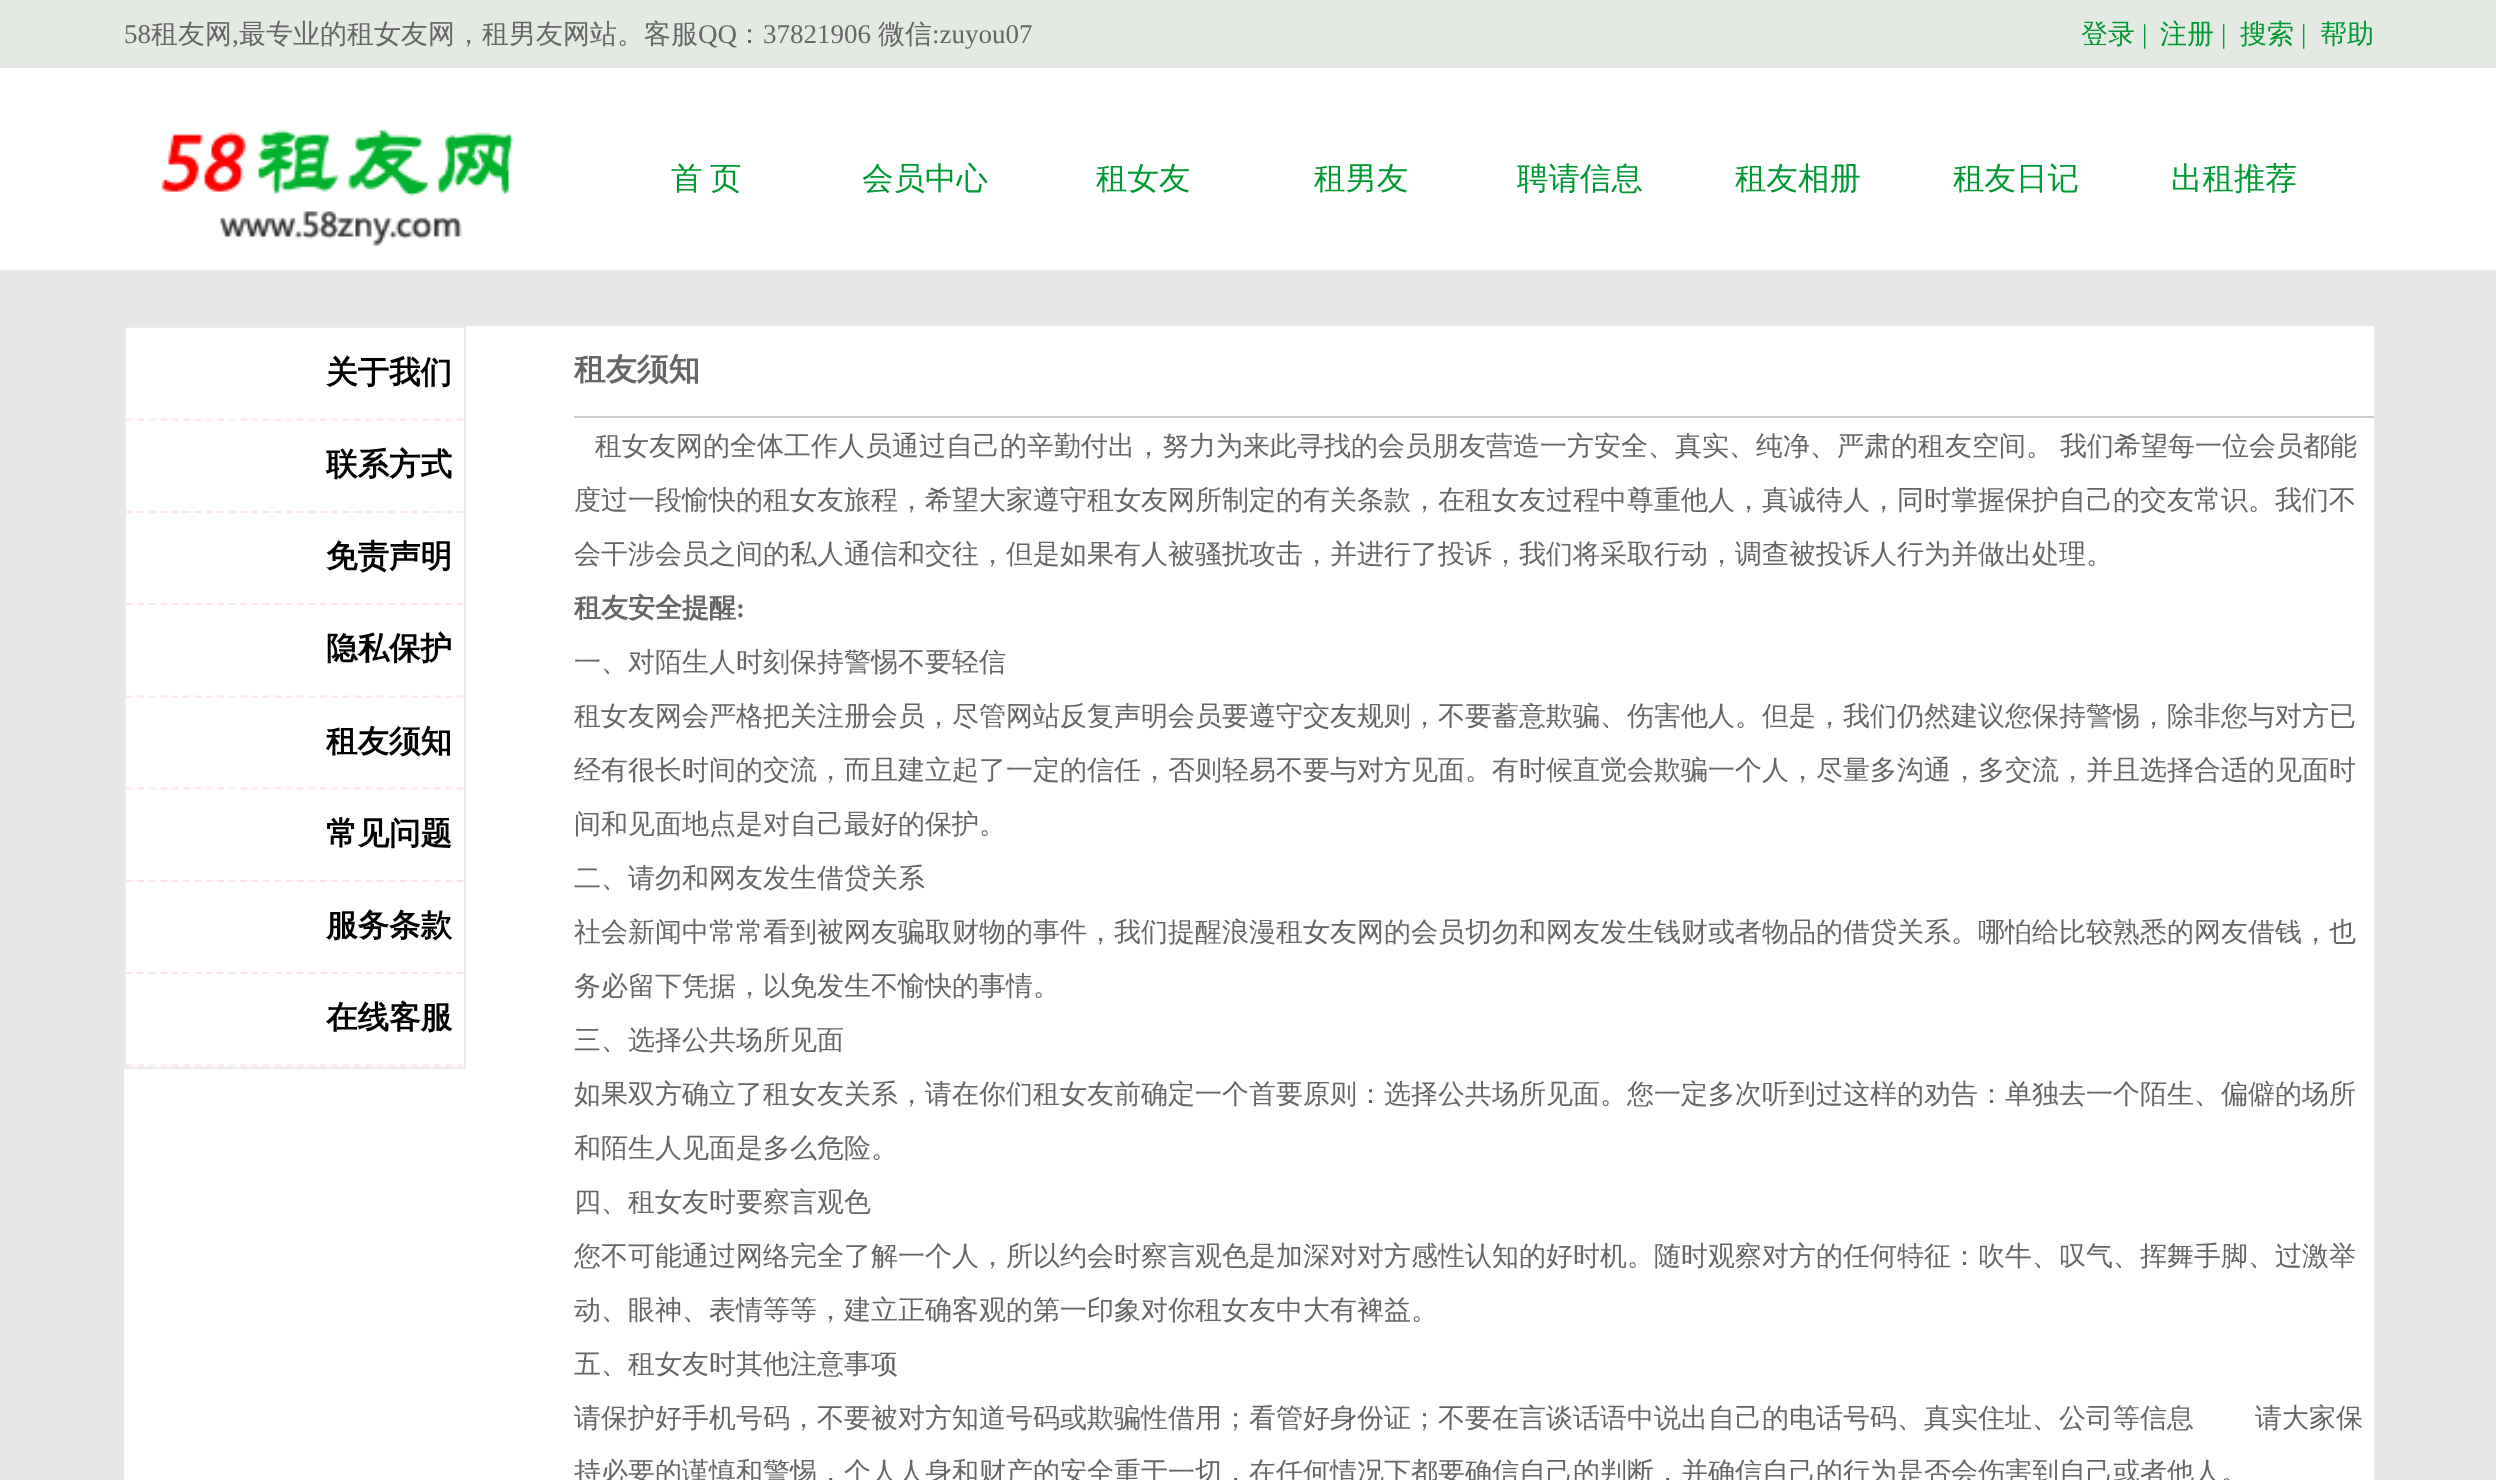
(async () => {
  const canvas = document.querySelector("canvas");
  canvas.width = 2496;
  canvas.height = 1480;
  const ctx = canvas.getContext("2d");
  ctx.miterLimit = 4;
  ctx.fontKerning = "normal";
  async function loadImage(src) {
    const img = new Image();
    img.src = src;
    await img.decode();
    return img;
  }
  let path;

  ctx.fillStyle = "#ffffff";
  ctx.fillRect(0, 0, 2496, 1480);
  ctx.fillStyle = "#e4eae3";
  ctx.fillRect(0, 0, 2496, 68);
  ctx.drawImage(await loadImage("img/1.png"), 161, 130, 353, 116);
  ctx.fillStyle = "#e7e7e7";
  ctx.fillRect(0, 270, 2496, 1210);
  ctx.fillStyle = "#ffffff";
  ctx.fillRect(124, 326, 2250, 1154);
  ctx.strokeStyle = "#ebebeb";
  ctx.lineWidth = 2;
  ctx.strokeRect(125, 327, 340, 741);
  path = new Path2D("M126 419.5H463.5");
  ctx.strokeStyle = "#fee2f5";
  ctx.lineWidth = 2.2;
  ctx.setLineDash([6.75, 4.66]);
  ctx.stroke(path);
  path = new Path2D("M126 512H463.5");
  ctx.stroke(path);
  path = new Path2D("M126 604H463.5");
  ctx.stroke(path);
  path = new Path2D("M126 696.5H463.5");
  ctx.stroke(path);
  path = new Path2D("M126 788.5H463.5");
  ctx.stroke(path);
  path = new Path2D("M126 881H463.5");
  ctx.stroke(path);
  path = new Path2D("M126 973H463.5");
  ctx.stroke(path);
  path = new Path2D("M126 1065.5H463.5");
  ctx.stroke(path);
  ctx.fillStyle = "#cccccc";
  ctx.fillRect(574, 416, 1800, 2);
  ctx.font = "27px Liberation Serif";
  ctx.fillStyle = "#666666";
  ctx.fillText("58", 124, 43);
  ctx.font = "500 27px WenQuanYi Zen Hei";
  ctx.fillText("租友网", 151, 43);
  ctx.fillText("最专业的租女友网，租男友网站。客服", 239, 43);
  ctx.font = "27px Liberation Serif";
  ctx.fillText("QQ", 698, 43);
  ctx.font = "500 27px WenQuanYi Zen Hei";
  ctx.fillText("：", 736, 43);
  ctx.font = "27px Liberation Serif";
  ctx.fillText("37821906", 763, 43);
  ctx.font = "500 27px WenQuanYi Zen Hei";
  ctx.fillText("微信", 878, 43);
  ctx.font = "27px Liberation Serif";
  ctx.fillText(":zuyou07", 932, 43);
  ctx.fillText(",", 232, 43);
  ctx.font = "500 27px WenQuanYi Zen Hei";
  ctx.fillStyle = "#009933";
  ctx.fillText("登录", 2081, 43);
  ctx.font = "27px Liberation Serif";
  ctx.fillText("|", 2142, 43);
  ctx.font = "500 27px WenQuanYi Zen Hei";
  ctx.fillText("注册", 2160, 43);
  ctx.font = "27px Liberation Serif";
  ctx.fillText("|", 2221, 43);
  ctx.font = "500 27px WenQuanYi Zen Hei";
  ctx.fillText("搜索", 2240, 43);
  ctx.font = "27px Liberation Serif";
  ctx.fillText("|", 2301, 43);
  ctx.font = "500 27px WenQuanYi Zen Hei";
  ctx.fillText("帮助", 2320, 43);
  ctx.wordSpacing = "-2px";
  ctx.font = "500 31.5px WenQuanYi Zen Hei";
  ctx.fillText("首 页", 671, 189);
  ctx.wordSpacing = "0px";
  for (const [text, x, y] of [
    ["会员中心", 862, 189],
    ["租女友", 1096, 189],
    ["租男友", 1314, 189],
    ["聘请信息", 1517, 189],
    ["租友相册", 1735, 189],
    ["租友日记", 1953, 189],
    ["出租推荐", 2171, 189],
  ]) {
    ctx.fillText(text, x, y);
  }
  ctx.font = "bold 31.5px WenQuanYi Zen Hei";
  ctx.fillStyle = "#000000";
  for (const [text, x, y] of [
    ["关于我们", 326, 383],
    ["联系方式", 326, 475],
    ["免责声明", 326, 567],
    ["隐私保护", 326, 659],
    ["租友须知", 326, 752],
    ["常见问题", 326, 844],
    ["服务条款", 326, 936],
    ["在线客服", 326, 1028],
  ]) {
    ctx.fillText(text, x, y);
  }
  ctx.fillStyle = "#666666";
  ctx.fillText("租友须知", 574, 380);
  ctx.wordSpacing = "-1px";
  ctx.font = "500 27px WenQuanYi Zen Hei";
  ctx.fillText("租女友网的全体工作人员通过自己的辛勤付出，努力为来此寻找的会员朋友营造一方安全、真实、纯净、严肃的租友空间。 我们希望每一位会员都能", 595, 455);
  ctx.wordSpacing = "0px";
  ctx.fillText("度过一段愉快的租女友旅程，希望大家遵守租女友网所制定的有关条款，在租女友过程中尊重他人，真诚待人，同时掌握保护自己的交友常识。我们不", 574, 509);
  ctx.fillText("会干涉会员之间的私人通信和交往，但是如果有人被骚扰攻击，并进行了投诉，我们将采取行动，调查被投诉人行为并做出处理。", 574, 563);
  ctx.font = "bold 27px WenQuanYi Zen Hei";
  ctx.fillText("租友安全提醒", 574, 617);
  ctx.font = "bold 27px Liberation Serif";
  ctx.fillText(":", 736, 617);
  ctx.font = "500 27px WenQuanYi Zen Hei";
  for (const [text, x, y] of [
    ["一、对陌生人时刻保持警惕不要轻信", 574, 671],
    ["租女友网会严格把关注册会员，尽管网站反复声明会员要遵守交友规则，不要蓄意欺骗、伤害他人。但是，我们仍然建议您保持警惕，除非您与对方已", 574, 725],
    ["经有很长时间的交流，而且建立起了一定的信任，否则轻易不要与对方见面。有时候直觉会欺骗一个人，尽量多沟通，多交流，并且选择合适的见面时", 574, 779],
    ["间和见面地点是对自己最好的保护。", 574, 833],
    ["二、请勿和网友发生借贷关系", 574, 887],
    ["社会新闻中常常看到被网友骗取财物的事件，我们提醒浪漫租女友网的会员切勿和网友发生钱财或者物品的借贷关系。哪怕给比较熟悉的网友借钱，也", 574, 941],
    ["务必留下凭据，以免发生不愉快的事情。", 574, 995],
    ["三、选择公共场所见面", 574, 1049],
    ["如果双方确立了租女友关系，请在你们租女友前确定一个首要原则：选择公共场所见面。您一定多次听到过这样的劝告：单独去一个陌生、偏僻的场所", 574, 1103],
    ["和陌生人见面是多么危险。", 574, 1157],
    ["四、租女友时要察言观色", 574, 1211],
    ["您不可能通过网络完全了解一个人，所以约会时察言观色是加深对对方感性认知的好时机。随时观察对方的任何特征：吹牛、叹气、挥舞手脚、过激举", 574, 1265],
    ["动、眼神、表情等等，建立正确客观的第一印象对你租女友中大有裨益。", 574, 1319],
    ["五、租女友时其他注意事项", 574, 1373],
  ]) {
    ctx.fillText(text, x, y);
  }
  ctx.wordSpacing = "-1px";
  ctx.fillText("请保护好手机号码，不要被对方知道号码或欺骗性借用；看管好身份证；不要在言谈话语中说出自己的电话号码、真实住址、公司等信息 　　请大家保", 574, 1427);
  ctx.wordSpacing = "0px";
  ctx.fillText("持必要的谨慎和警惕，个人人身和财产的安全重于一切，在任何情况下都要确信自己的判断，并确信自己的行为是否会伤害到自己或者他人。", 574, 1481);
})();
